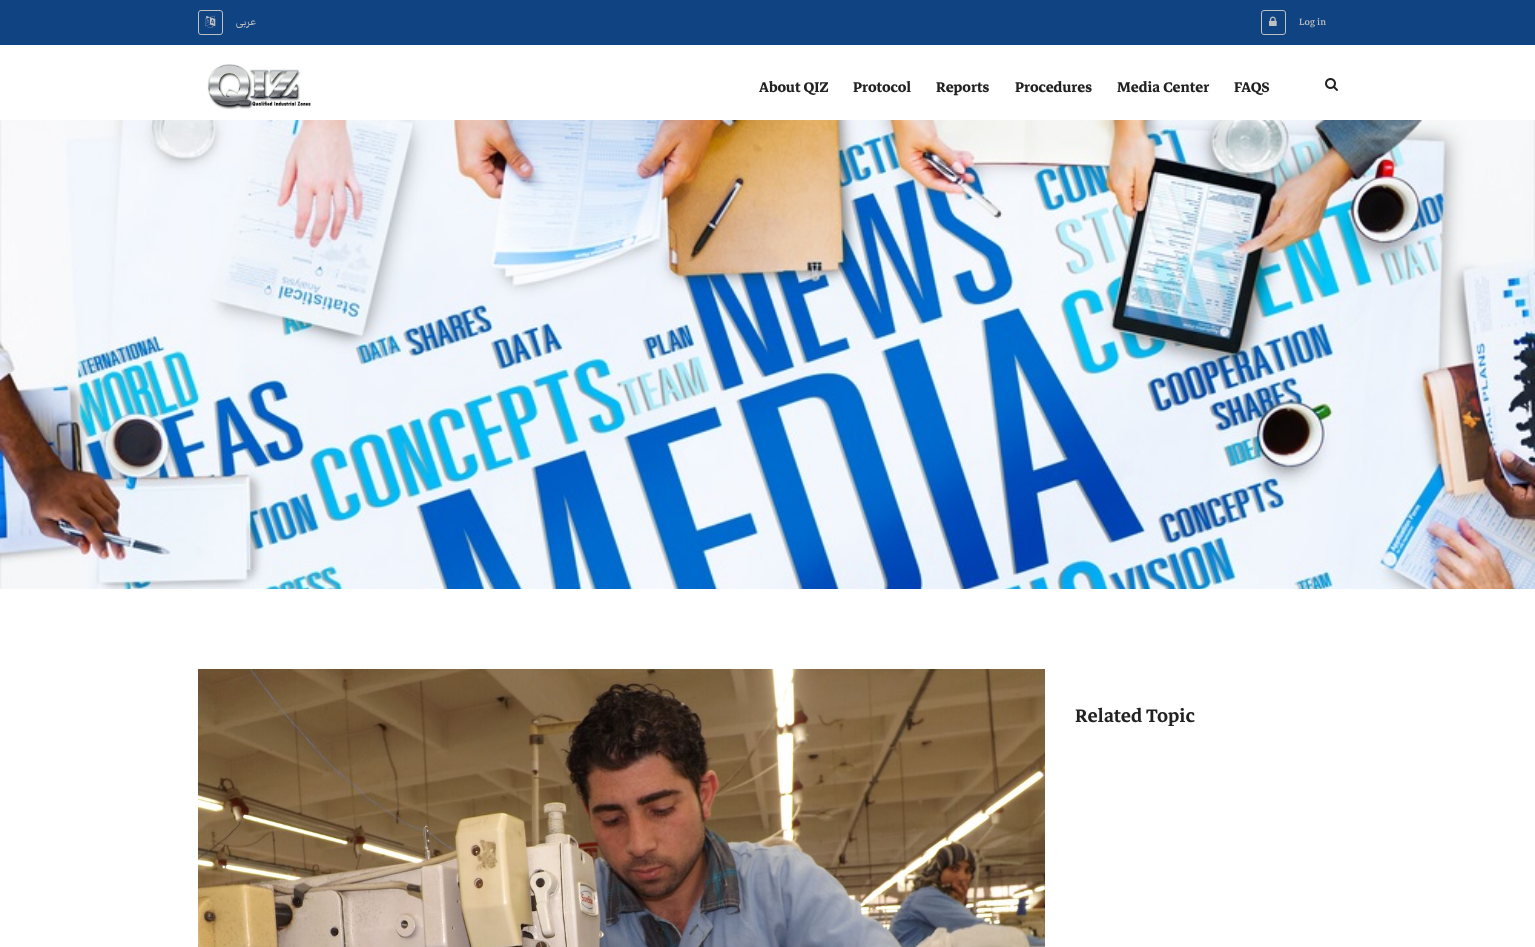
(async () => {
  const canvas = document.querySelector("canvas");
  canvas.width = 1535;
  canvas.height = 947;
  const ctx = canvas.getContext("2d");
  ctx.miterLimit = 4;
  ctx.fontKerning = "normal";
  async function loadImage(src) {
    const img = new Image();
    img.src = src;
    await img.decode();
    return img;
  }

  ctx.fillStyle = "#ffffff";
  ctx.fillRect(0, 0, 1535, 947);
  ctx.fillStyle = "#104382";
  ctx.fillRect(0, 0, 1535, 45);
  ctx.beginPath();
  ctx.roundRect(198.5, 10.5, 24, 24, 2.5);
  ctx.strokeStyle = "#c0c0c0";
  ctx.stroke();
  ctx.drawImage(await loadImage("img/1.png"), 205, 15, 11, 13);
  ctx.beginPath();
  ctx.roundRect(1261.5, 10.5, 24, 24, 2.5);
  ctx.stroke();
  ctx.drawImage(await loadImage("img/2.png"), 1269, 16, 8, 10);
  ctx.drawImage(await loadImage("img/3.png"), 207, 64, 104, 46);
  ctx.drawImage(await loadImage("img/4.png"), 1325, 78, 13, 13);
  ctx.drawImage(await loadImage("img/5.png"), 0, 120, 1535, 469);
  ctx.drawImage(await loadImage("img/6.png"), 198, 669, 847, 278);
  ctx.direction = "rtl";
  ctx.font = "13px Markazi Text";
  ctx.fillStyle = "#c0c0c0";
  ctx.fillText("عربى", 256, 25);
  ctx.direction = "ltr";
  ctx.fillText("Log in", 1299, 25);
  ctx.font = "bold 20px Markazi Text";
  ctx.fillStyle = "#222222";
  for (const [text, x, y] of [
    ["About QIZ", 759, 92],
    ["Protocol", 853, 92],
    ["Reports", 936, 92],
    ["Procedures", 1015, 92],
    ["Media Center", 1117, 92],
    ["FAQS", 1234, 92],
  ]) {
    ctx.fillText(text, x, y);
  }
  ctx.font = "600 26px Markazi Text";
  ctx.fillText("Related Topic", 1075, 722);
})();
